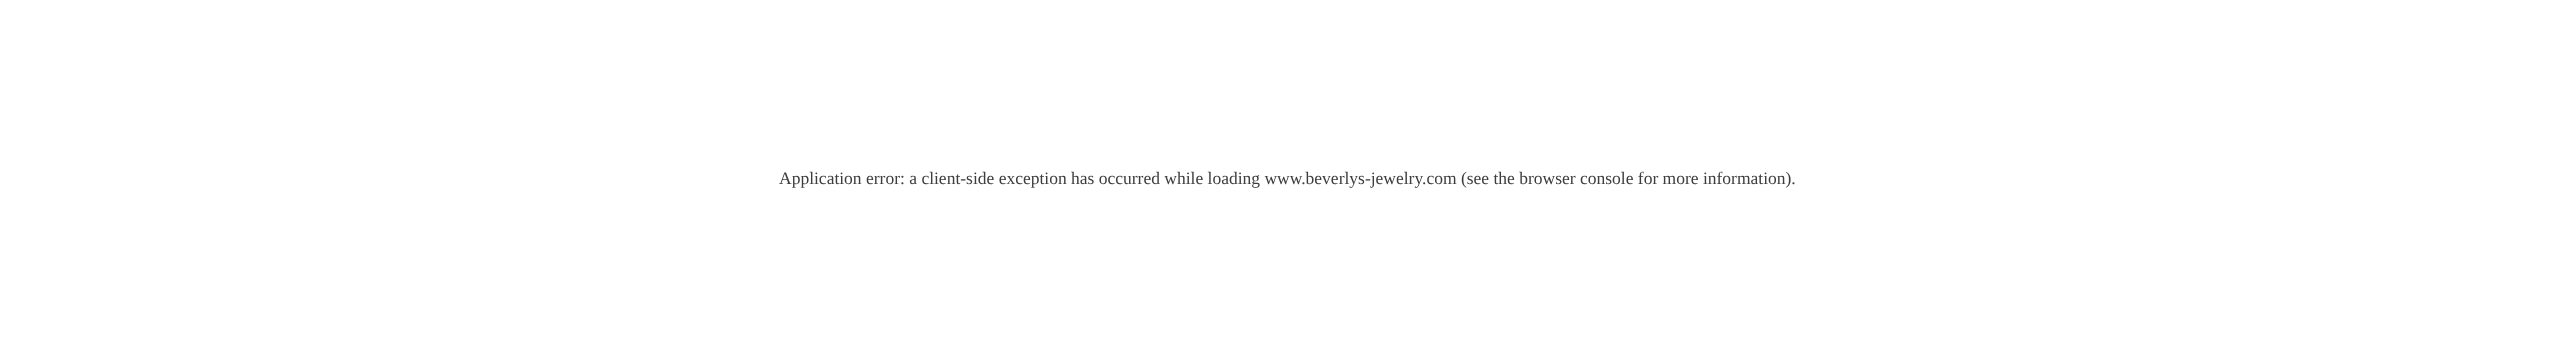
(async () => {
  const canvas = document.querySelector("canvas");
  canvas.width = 2574;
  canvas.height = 357;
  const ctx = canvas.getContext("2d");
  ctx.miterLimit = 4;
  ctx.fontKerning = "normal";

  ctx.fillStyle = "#ffffff";
  ctx.fillRect(0, 0, 2574, 357);
  ctx.font = "17.5px Liberation Serif";
  ctx.fillStyle = "#3e3d3d";
  ctx.fillText("Application error: a client-side exception has occurred while loading www.beverlys-jewelry.com (see the browser console for more information).", 779, 184);
})();
